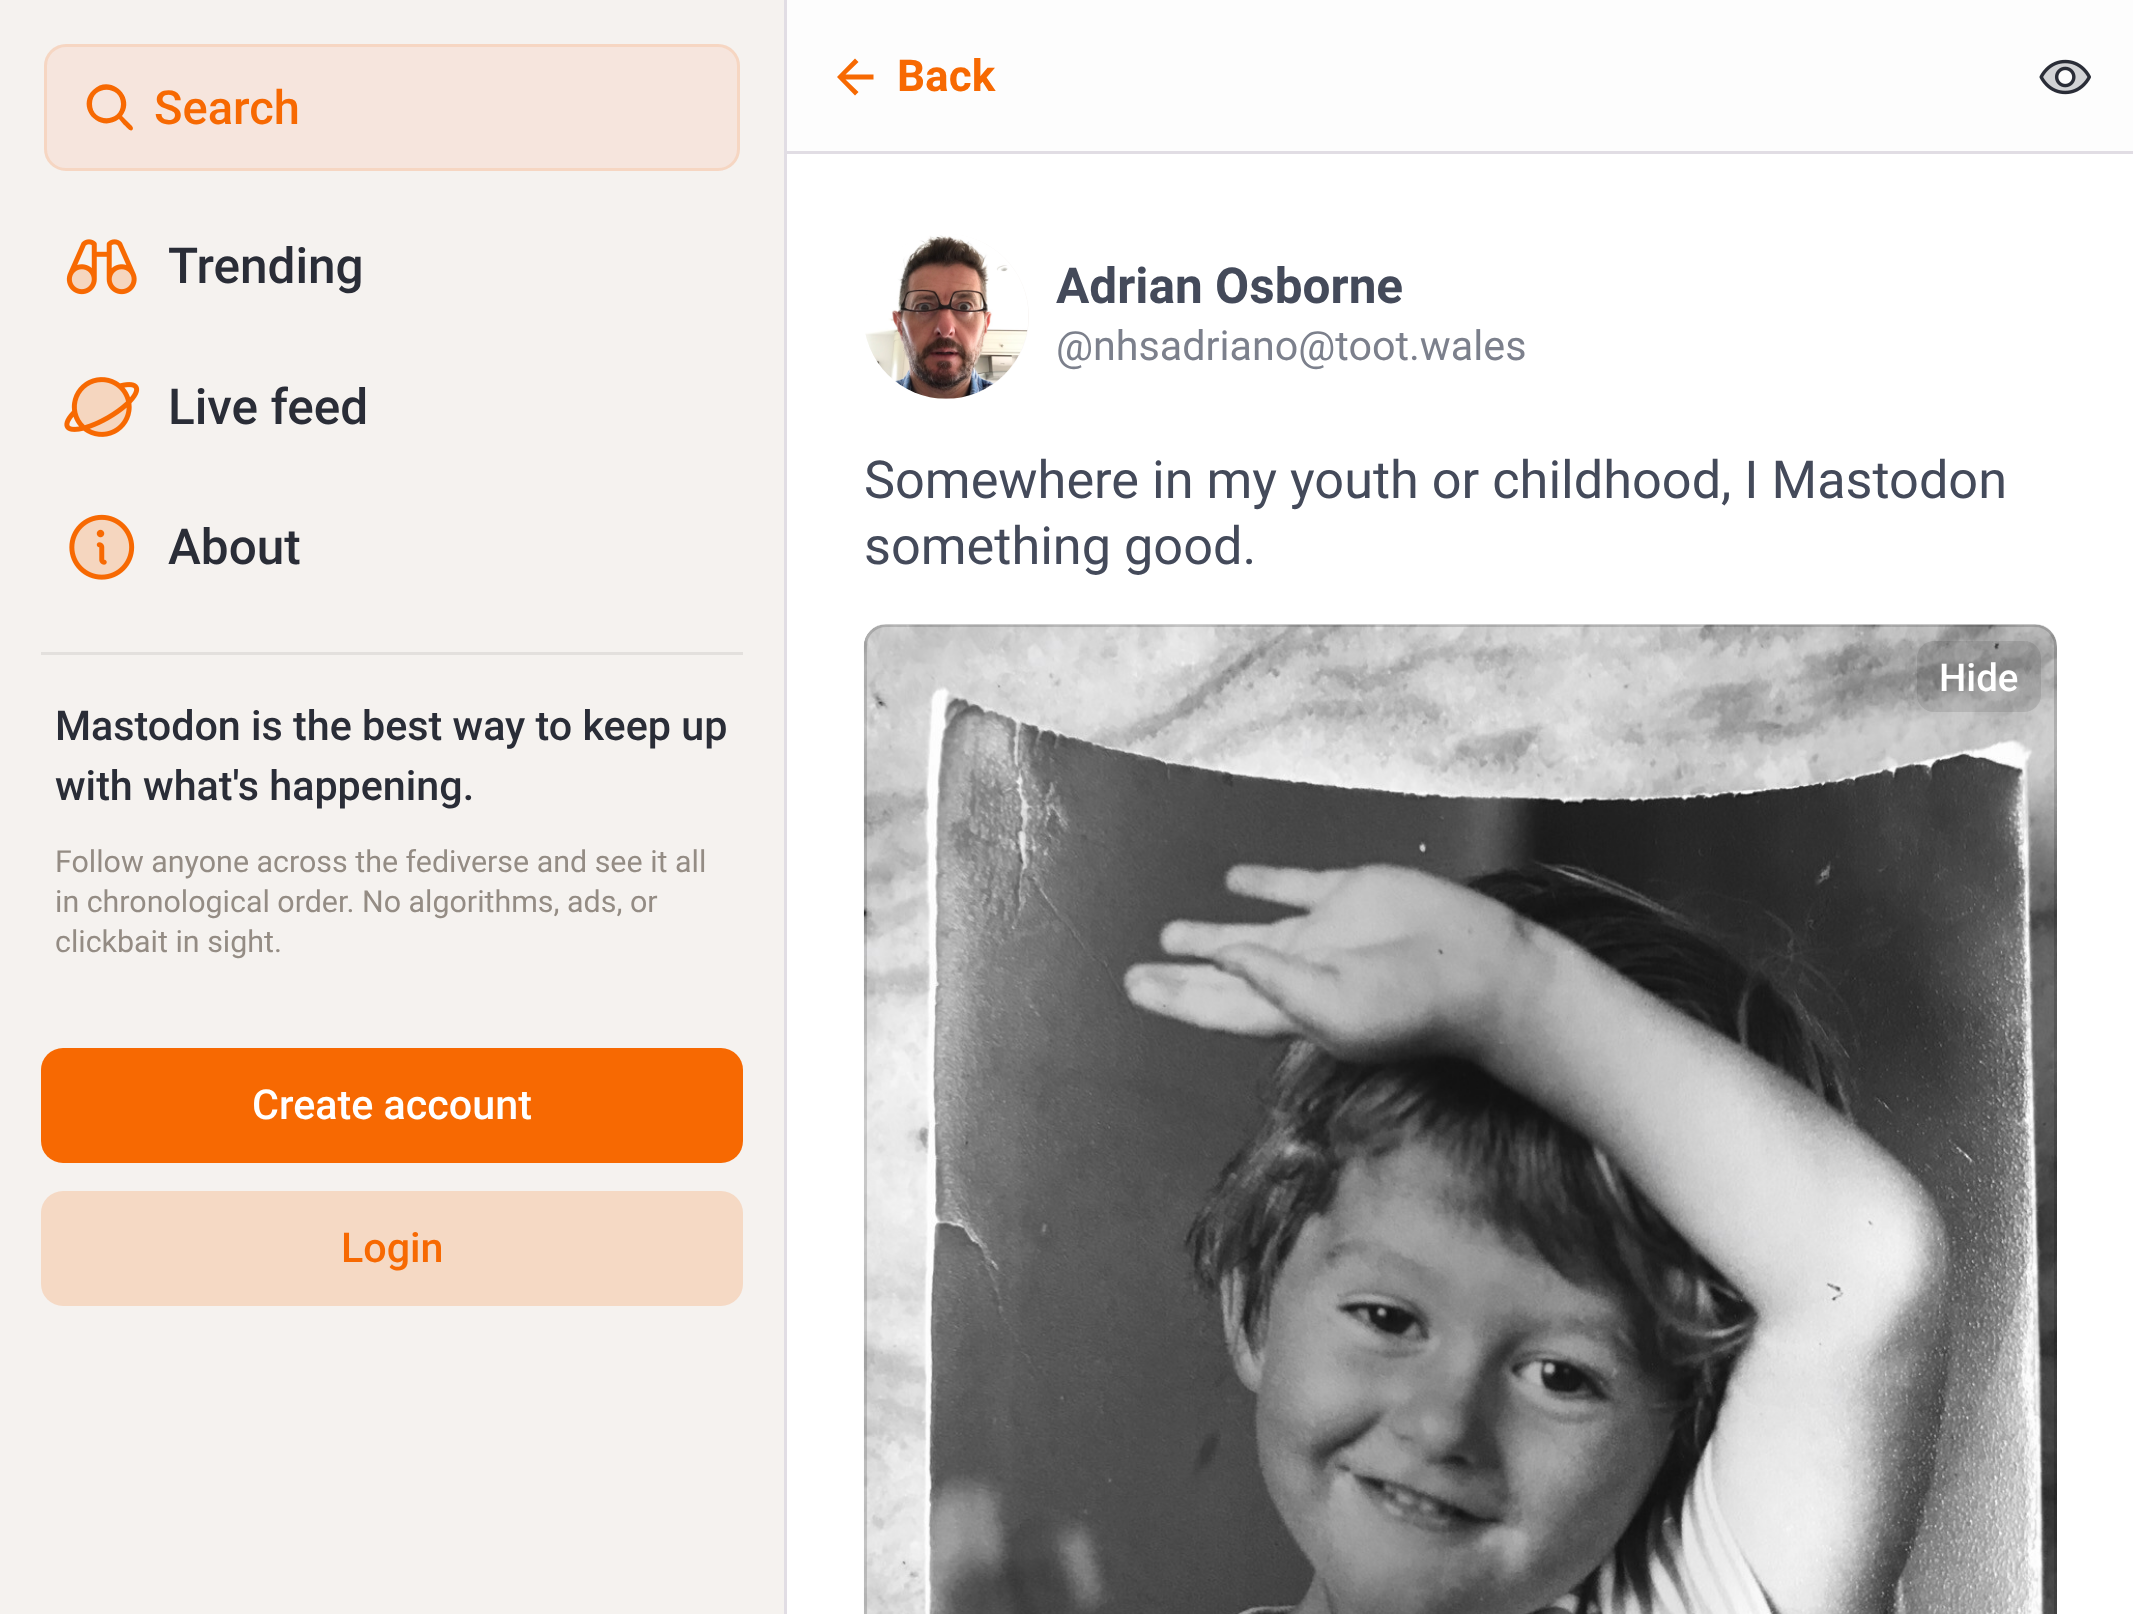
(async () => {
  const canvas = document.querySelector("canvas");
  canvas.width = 2133;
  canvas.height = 1614;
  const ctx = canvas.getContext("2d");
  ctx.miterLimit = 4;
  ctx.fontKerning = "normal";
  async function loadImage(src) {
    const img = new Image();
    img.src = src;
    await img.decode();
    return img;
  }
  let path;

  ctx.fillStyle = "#f5f2ef";
  ctx.fillRect(0, 0, 2133, 1614);
  ctx.fillStyle = "#f6e5dd";
  ctx.beginPath();
  ctx.roundRect(44, 44, 696, 127, 22);
  ctx.fill();
  ctx.beginPath();
  ctx.roundRect(45.5, 45.5, 693, 124, 20.5);
  ctx.strokeStyle = "rgba(247, 105, 2, 0.12)";
  ctx.lineWidth = 3;
  ctx.stroke();
  ctx.fillStyle = "#f76902";
  path = new Path2D("M132 126L122 116C137 97 110 73 93 90C75 107 99 134 119 119L124 125C125 125 132 135 133 128ZM92 104C92 85 121 85 121 104C121 123 92 123 92 104Z");
  ctx.fill(path);
  ctx.drawImage(await loadImage("img/1.png"), 66, 239, 71, 56);
  ctx.drawImage(await loadImage("img/2.png"), 64, 377, 76, 60);
  ctx.drawImage(await loadImage("img/3.png"), 69, 514, 66, 66);
  ctx.fillStyle = "#e3e0dd";
  ctx.fillRect(41, 652, 702, 3);
  ctx.fillStyle = "#f76902";
  ctx.beginPath();
  ctx.roundRect(41, 1048, 702, 115, 22);
  ctx.fill();
  ctx.fillStyle = "#f5d9c4";
  ctx.beginPath();
  ctx.roundRect(41, 1191, 702, 115, 22);
  ctx.fill();
  ctx.fillStyle = "#fdfdfd";
  ctx.fillRect(787, 0, 1346, 151);
  ctx.fillStyle = "#f76902";
  path = new Path2D("M845.5 79.5L858.5 92L855 95.5L837 77L855 58.5L858.5 62L845.5 74.5H873.5V79.5Z");
  ctx.fill(path);
  ctx.drawImage(await loadImage("img/4.png"), 2039, 59, 52, 36);
  for (const [x, y, w, h, color] of [
    [787, 154, 1346, 1460, "#ffffff"],
    [784, 0, 3, 1614, "#e1dde4"],
    [787, 151, 1346, 3, "#e1dde4"],
  ]) {
    ctx.fillStyle = color;
    ctx.fillRect(x, y, w, h);
  }
  ctx.fillStyle = "#f9f6f4";
  ctx.beginPath();
  ctx.arc(946.5, 316.5, 82.5, 0, Math.PI * 2);
  ctx.fill();
  ctx.drawImage(await loadImage("img/5.png"), 864, 234, 164, 165);
  ctx.drawImage(await loadImage("img/6.png"), 863, 624, 1194, 990);
  ctx.beginPath();
  ctx.roundRect(865.5, 625.5, 1190, 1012, 20.5);
  ctx.strokeStyle = "rgba(0, 0, 0, 0.15)";
  ctx.stroke();
  ctx.fillStyle = "rgba(0, 0, 0, 0.1)";
  ctx.beginPath();
  ctx.roundRect(1917, 641, 124, 71, 17);
  ctx.fill();
  ctx.font = "500 47px Roboto";
  ctx.fillStyle = "#f76902";
  ctx.fillText("Search", 154, 124);
  ctx.font = "500 49.5px Roboto";
  ctx.fillStyle = "#2a2d37";
  for (const [text, x, y] of [
    ["Trending", 168, 283],
    ["Live feed", 168, 424],
    ["About", 168, 564],
  ]) {
    ctx.fillText(text, x, y);
  }
  ctx.font = "500 41.25px Roboto";
  ctx.fillText("Mastodon is the best way to keep up", 55, 740);
  ctx.fillText("with what's happening.", 55, 800);
  ctx.font = "30.4px Roboto";
  ctx.fillStyle = "#948c84";
  for (const [text, x, y] of [
    ["Follow anyone across the fediverse and see it all", 55, 872],
    ["in chronological order. No algorithms, ads, or", 55, 912],
    ["clickbait in sight.", 55, 952],
  ]) {
    ctx.fillText(text, x, y);
  }
  ctx.font = "500 41.25px Roboto";
  ctx.fillStyle = "#ffffff";
  ctx.fillText("Create account", 252, 1119);
  ctx.fillStyle = "#f76902";
  ctx.fillText("Login", 341, 1262);
  ctx.font = "bold 44px Roboto";
  ctx.fillText("Back", 897, 91);
  ctx.font = "bold 49.5px Roboto";
  ctx.fillStyle = "#444a5a";
  ctx.fillText("Adrian Osborne", 1056, 303);
  ctx.font = "41.25px Roboto";
  ctx.fillStyle = "#7c808c";
  ctx.fillText("@nhsadriano@toot.wales", 1056, 360);
  ctx.font = "52.25px Roboto";
  ctx.fillStyle = "#444a5a";
  ctx.fillText("Somewhere in my youth or childhood, I Mastodon", 864, 498);
  ctx.fillText("something good.", 864, 564);
  ctx.font = "500 38.5px Roboto";
  ctx.fillStyle = "#ffffff";
  ctx.fillText("Hide", 1939, 691);
})();
